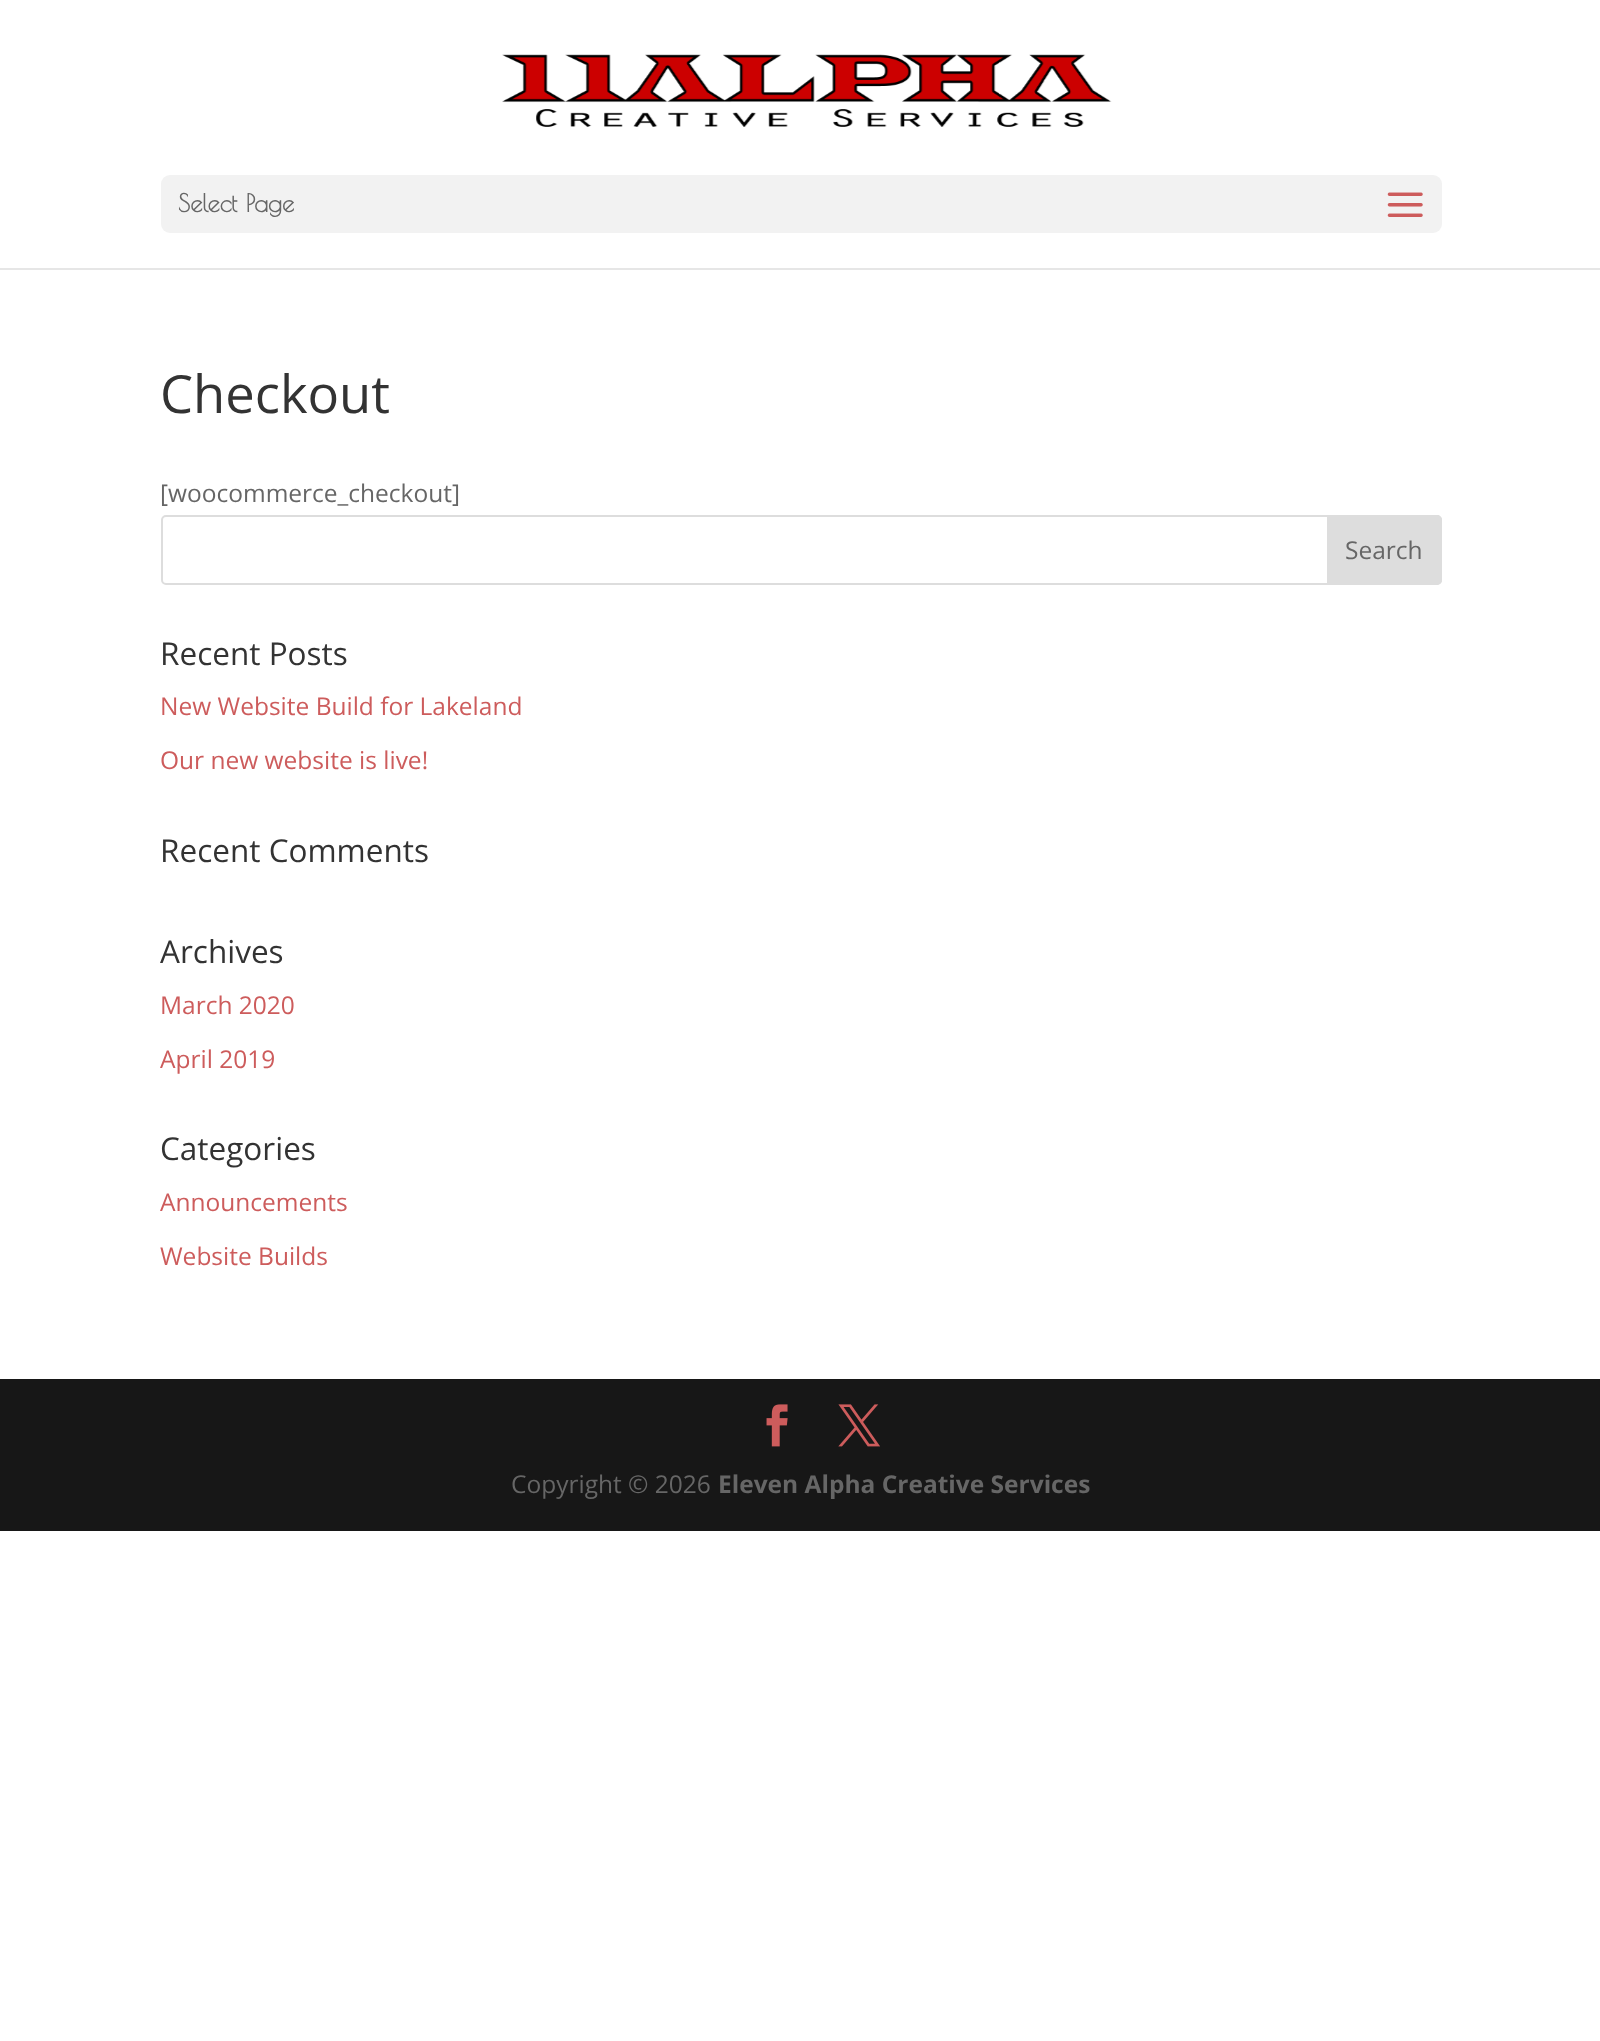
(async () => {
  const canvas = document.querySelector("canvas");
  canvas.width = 1600;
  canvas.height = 2041;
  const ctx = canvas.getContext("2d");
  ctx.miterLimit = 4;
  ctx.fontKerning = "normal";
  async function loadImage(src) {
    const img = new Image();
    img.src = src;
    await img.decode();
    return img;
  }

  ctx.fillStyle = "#ffffff";
  ctx.fillRect(0, 0, 1600, 2041);
  ctx.fillStyle = "#e6e6e6";
  ctx.fillRect(0, 268, 1600, 2);
  ctx.drawImage(await loadImage("img/1.png"), 502, 54, 610, 73);
  ctx.fillStyle = "#f2f2f2";
  ctx.beginPath();
  ctx.roundRect(161, 175, 1281, 58, 9);
  ctx.fill();
  ctx.drawImage(await loadImage("img/2.png"), 1387, 192, 36, 25);
  ctx.beginPath();
  ctx.roundRect(162, 516, 1279, 68, 4);
  ctx.strokeStyle = "#dddddd";
  ctx.lineWidth = 2;
  ctx.stroke();
  ctx.fillStyle = "#dddddd";
  ctx.beginPath();
  ctx.roundRect(1328, 516, 113, 68, [0, 4, 4, 0]);
  ctx.fill();
  ctx.stroke();
  ctx.fillStyle = "#171717";
  ctx.fillRect(0, 1379, 1600, 152);
  ctx.drawImage(await loadImage("img/3.png"), 766, 1404, 22, 43);
  ctx.drawImage(await loadImage("img/4.png"), 838, 1404, 42, 43);
  ctx.font = "bold 24.5px Poiret One";
  ctx.fillStyle = "#666666";
  ctx.fillText("Select Page", 178, 212);
  ctx.font = "52.5px Open Sans";
  ctx.fillStyle = "#333333";
  ctx.fillText("Checkout", 160, 413);
  ctx.font = "24.5px Open Sans";
  ctx.fillStyle = "#666666";
  ctx.fillText("[woocommerce_checkout]", 160, 502);
  ctx.fillText("Search", 1345, 559);
  ctx.font = "31.5px Open Sans";
  ctx.fillStyle = "#333333";
  ctx.fillText("Recent Posts", 160, 665);
  ctx.font = "24.5px Open Sans";
  ctx.fillStyle = "#cd5c5c";
  ctx.fillText("New Website Build for Lakeland", 160, 715);
  ctx.fillText("Our new website is live!", 160, 769);
  ctx.font = "31.5px Open Sans";
  ctx.fillStyle = "#333333";
  ctx.fillText("Recent Comments", 160, 862);
  ctx.fillText("Archives", 160, 963);
  ctx.font = "24.5px Open Sans";
  ctx.fillStyle = "#cd5c5c";
  ctx.fillText("March 2020", 160, 1014);
  ctx.fillText("April 2019", 160, 1068);
  ctx.font = "31.5px Open Sans";
  ctx.fillStyle = "#333333";
  ctx.fillText("Categories", 160, 1160);
  ctx.font = "24.5px Open Sans";
  ctx.fillStyle = "#cd5c5c";
  ctx.fillText("Announcements", 160, 1211);
  ctx.fillText("Website Builds", 160, 1265);
  ctx.fillStyle = "#666666";
  ctx.fillText("Copyright © 2026", 511, 1493);
  ctx.font = "bold 24.5px Open Sans";
  ctx.fillText("Eleven Alpha Creative Services", 718, 1493);
})();
